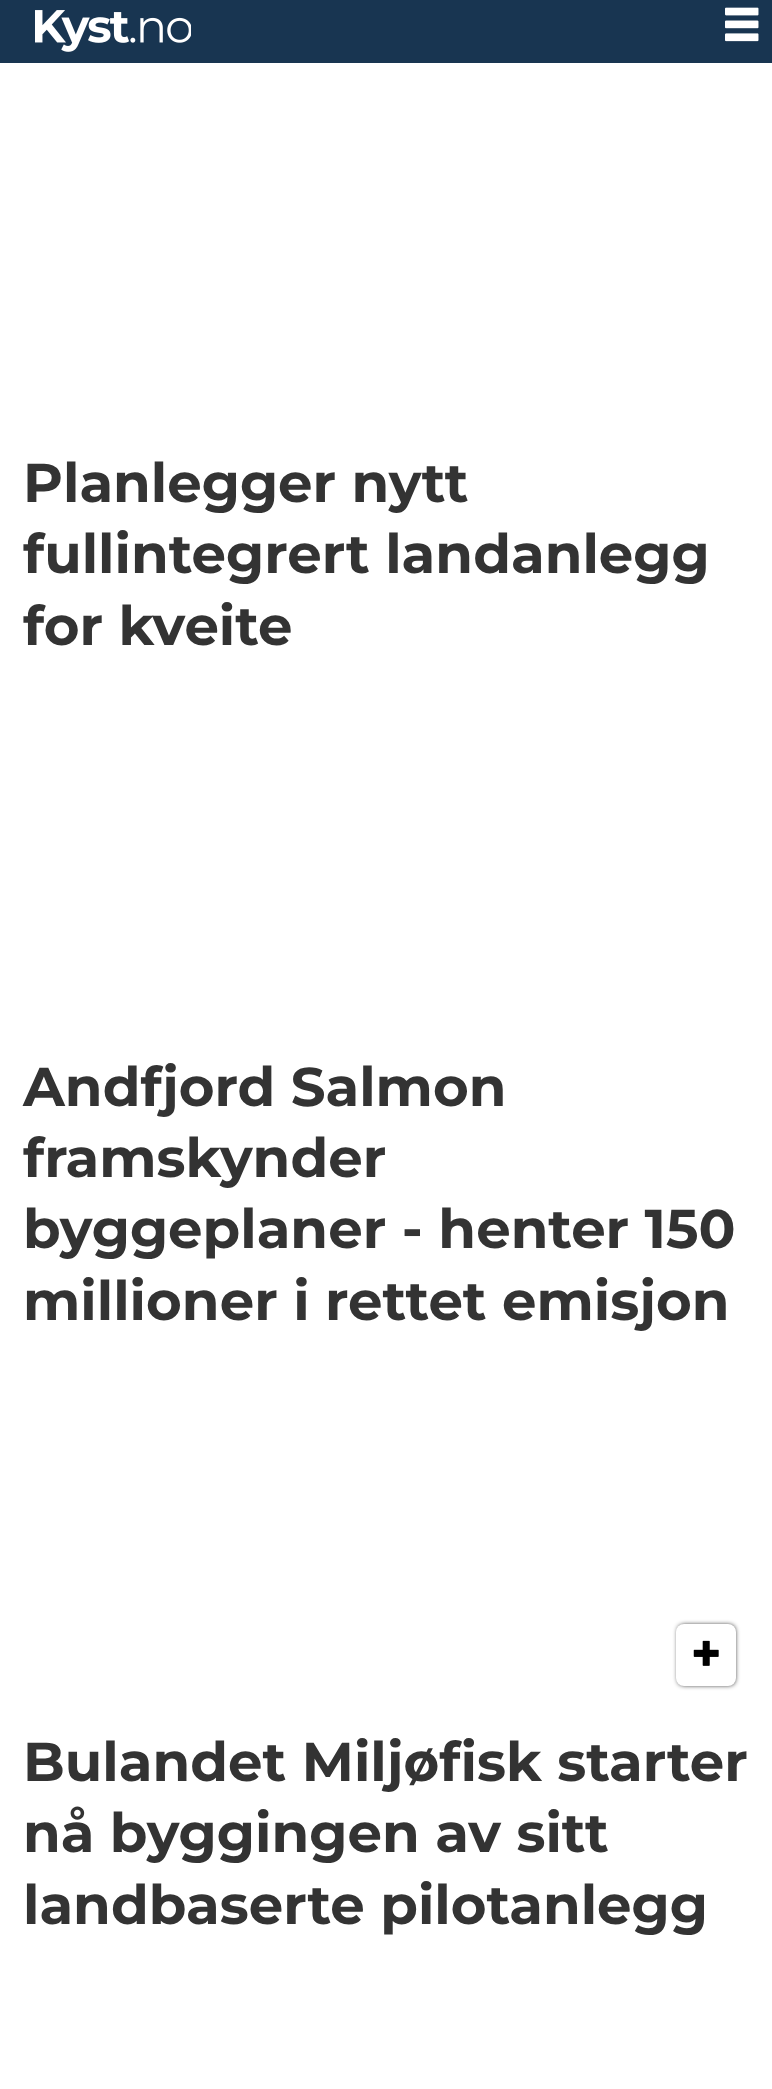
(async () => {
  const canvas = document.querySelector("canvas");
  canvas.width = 772;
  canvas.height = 2089;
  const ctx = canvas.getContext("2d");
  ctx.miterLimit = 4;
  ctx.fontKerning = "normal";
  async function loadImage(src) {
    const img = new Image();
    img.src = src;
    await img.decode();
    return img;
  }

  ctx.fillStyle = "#ffffff";
  ctx.fillRect(0, 0, 772, 2089);
  ctx.fillStyle = "#183551";
  ctx.fillRect(0, 0, 772, 63);
  ctx.drawImage(await loadImage("img/1.png"), 35, 10, 156, 42);
  ctx.drawImage(await loadImage("img/2.png"), 725, 7, 34, 35);
  ctx.fillStyle = "#000000";
  ctx.filter = "blur(2.5px)";
  ctx.beginPath();
  ctx.roundRect(678, 1625, 57, 60, 6);
  ctx.fill();
  ctx.filter = "none";
  ctx.fillStyle = "#ffffff";
  ctx.beginPath();
  ctx.roundRect(676, 1624, 60, 62, 8);
  ctx.fill();
  ctx.drawImage(await loadImage("img/3.png"), 693, 1640, 26, 26);
  ctx.font = "bold 54.6px Montserrat";
  ctx.fillStyle = "#333333";
  for (const [text, x, y] of [
    ["Planlegger nytt", 23, 502],
    ["fullintegrert landanlegg", 23, 573],
    ["for kveite", 23, 645],
    ["Andfjord Salmon", 23, 1106],
    ["framskynder", 23, 1177],
    ["byggeplaner - henter 150", 23, 1248],
    ["millioner i rettet emisjon", 23, 1320],
    ["Bulandet Miljøfisk starter", 23, 1781],
    ["nå byggingen av sitt", 23, 1852],
    ["landbaserte pilotanlegg", 23, 1924],
  ]) {
    ctx.fillText(text, x, y);
  }
})();
